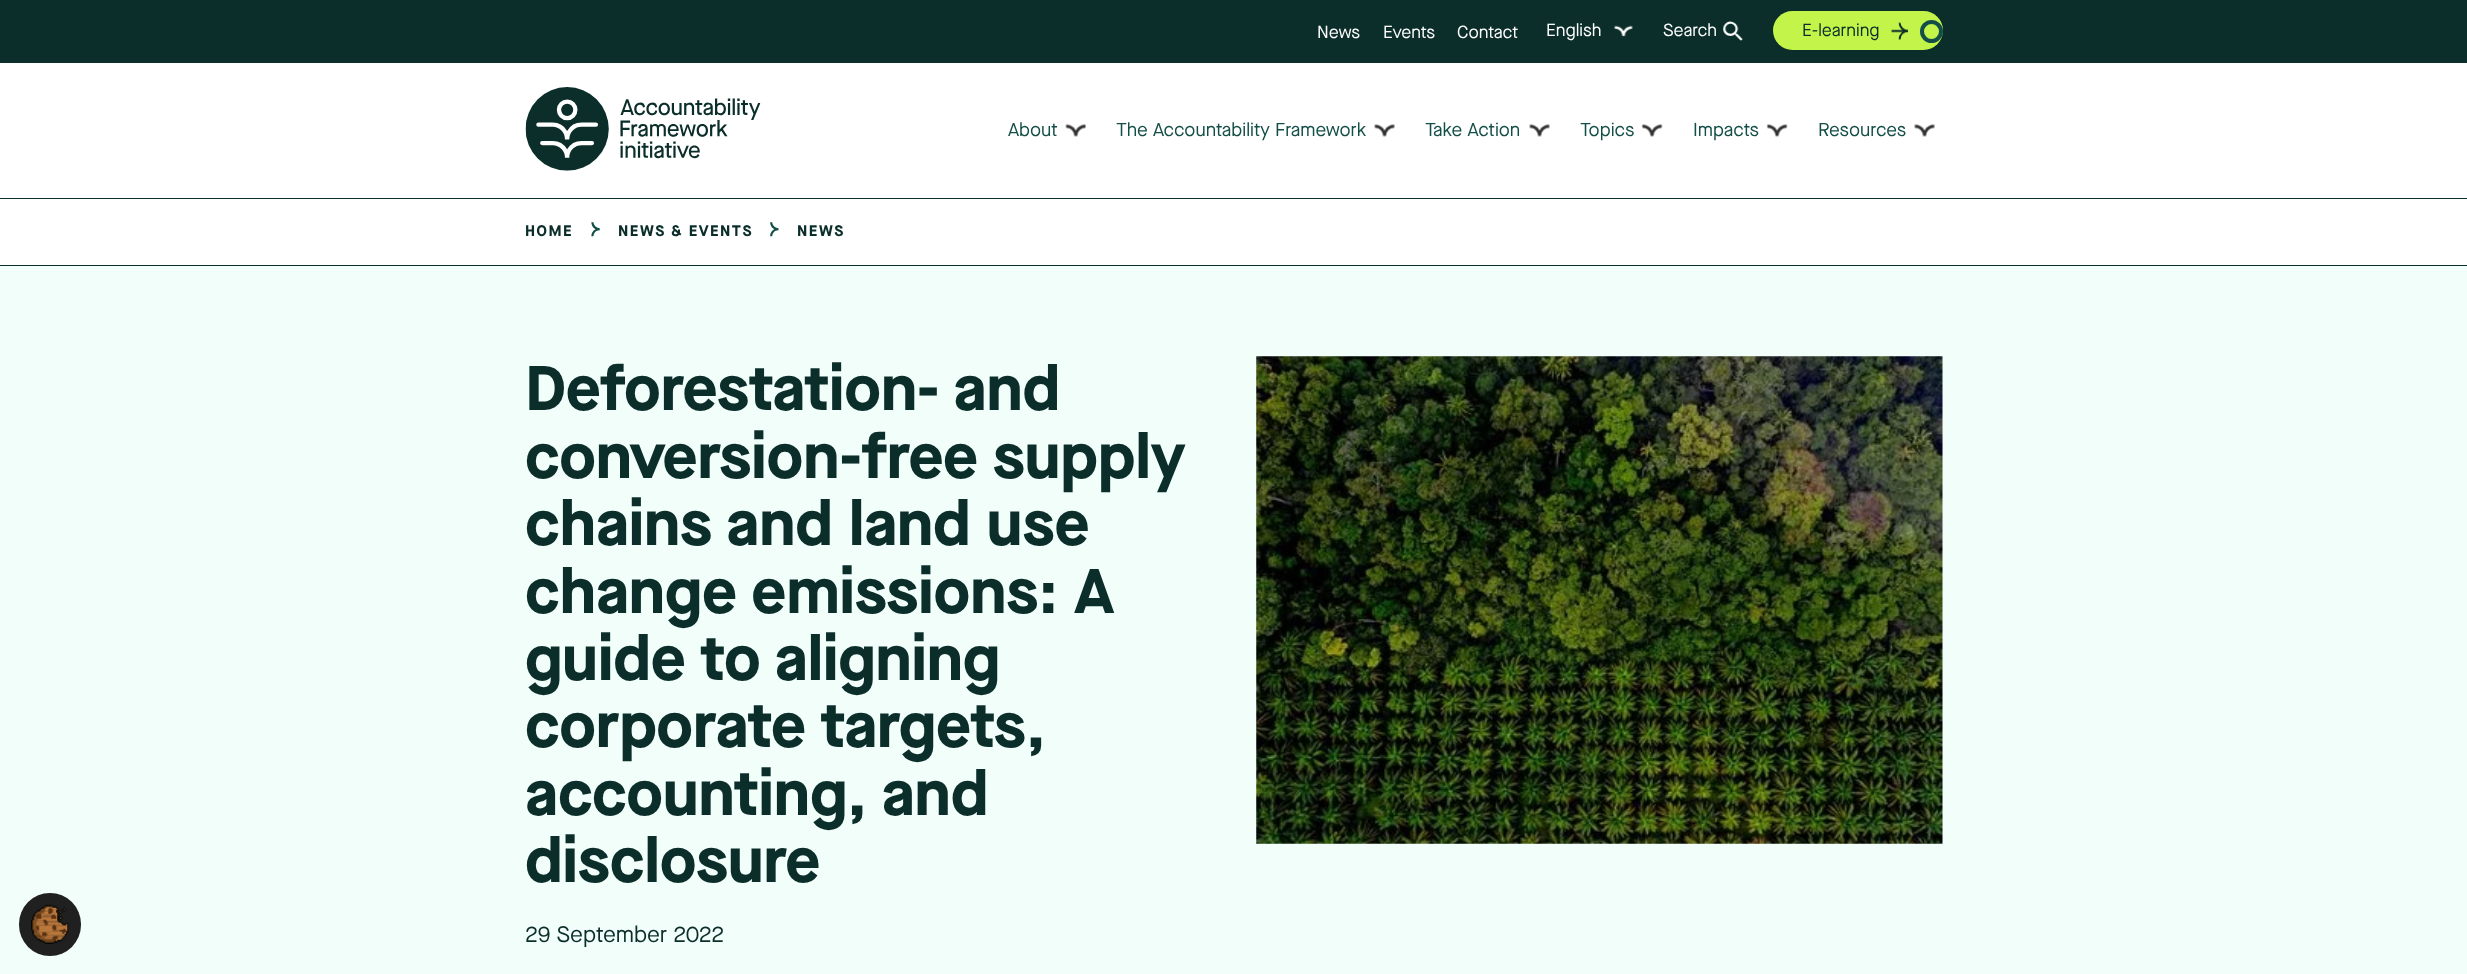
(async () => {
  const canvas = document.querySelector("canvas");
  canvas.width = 2467;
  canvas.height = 974;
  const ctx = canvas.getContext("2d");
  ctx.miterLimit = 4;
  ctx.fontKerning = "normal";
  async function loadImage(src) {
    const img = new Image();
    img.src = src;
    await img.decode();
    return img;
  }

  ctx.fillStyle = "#ffffff";
  ctx.fillRect(0, 0, 2467, 974);
  ctx.fillStyle = "#f1fefa";
  ctx.fillRect(0, 266, 2467, 708);
  ctx.fillStyle = "#202020";
  ctx.beginPath();
  ctx.roundRect(19, 893, 62, 63, 31);
  ctx.fill();
  ctx.drawImage(await loadImage("img/1.png"), 31, 904, 38, 40);
  ctx.fillStyle = "#0b2e2a";
  ctx.fillRect(0, 198, 2467, 1);
  ctx.drawImage(await loadImage("img/2.png"), 525, 87, 236, 84);
  ctx.fillRect(0, 0, 2467, 63);
  ctx.drawImage(await loadImage("img/3.png"), 1614, 25, 19, 12);
  ctx.drawImage(await loadImage("img/4.png"), 1723, 21, 20, 20);
  ctx.fillStyle = "#c2f44a";
  ctx.beginPath();
  ctx.roundRect(1773, 11, 170, 39, 19.5);
  ctx.fill();
  ctx.drawImage(await loadImage("img/5.png"), 1891, 22, 17, 18);
  ctx.beginPath();
  ctx.arc(1931.5, 31.5, 9.5, 0, Math.PI * 2);
  ctx.strokeStyle = "#144e48";
  ctx.lineWidth = 4;
  ctx.stroke();
  ctx.drawImage(await loadImage("img/6.png"), 1065, 124, 21, 13);
  ctx.drawImage(await loadImage("img/7.png"), 1374, 124, 21, 13);
  ctx.drawImage(await loadImage("img/7.png"), 1529, 124, 21, 13);
  ctx.drawImage(await loadImage("img/8.png"), 1641, 124, 22, 13);
  ctx.drawImage(await loadImage("img/8.png"), 1766, 124, 22, 13);
  ctx.drawImage(await loadImage("img/7.png"), 1914, 124, 21, 13);
  ctx.fillStyle = "#0b2e2a";
  ctx.fillRect(0, 265, 2467, 1);
  ctx.drawImage(await loadImage("img/9.png"), 591, 222, 9, 15);
  ctx.drawImage(await loadImage("img/10.png"), 770, 222, 9, 15);
  ctx.drawImage(await loadImage("img/11.png"), 1256, 356, 687, 488);
  ctx.font = "17.5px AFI";
  ctx.fillStyle = "#ffffff";
  for (const [text, x, y] of [
    ["News", 1317, 38],
    ["Events", 1383, 38],
    ["Contact", 1457, 38],
    ["English", 1546, 36],
    ["Search", 1663, 36],
  ]) {
    ctx.fillText(text, x, y);
  }
  ctx.fillStyle = "#0b2e2a";
  ctx.fillText("E-learning", 1802, 36);
  ctx.font = "18.75px AFI";
  ctx.fillStyle = "#144e48";
  for (const [text, x, y] of [
    ["About", 1008, 136],
    ["The Accountability Framework", 1116, 136],
    ["Take Action", 1425, 136],
    ["Topics", 1580, 136],
    ["Impacts", 1693, 136],
    ["Resources", 1818, 136],
  ]) {
    ctx.fillText(text, x, y);
  }
  ctx.letterSpacing = "1.5px";
  ctx.font = "bold 15.25px AFI";
  ctx.fillStyle = "#0b2e2a";
  for (const [text, x, y] of [
    ["HOME", 525, 236],
    ["NEWS & EVENTS", 618, 236],
    ["NEWS", 797, 236],
  ]) {
    ctx.fillText(text, x, y);
  }
  ctx.letterSpacing = "0px";
  ctx.font = "bold 63px AFI";
  for (const [text, x, y] of [
    ["Deforestation- and", 525, 410],
    ["conversion-free supply", 525, 478],
    ["chains and land use", 525, 545],
    ["change emissions: A", 525, 613],
    ["guide to aligning", 525, 680],
    ["corporate targets,", 525, 747],
    ["accounting, and", 525, 815],
    ["disclosure", 525, 882],
  ]) {
    ctx.fillText(text, x, y);
  }
  ctx.font = "22.5px AFI";
  ctx.fillText("29 September 2022", 525, 942);
})();
